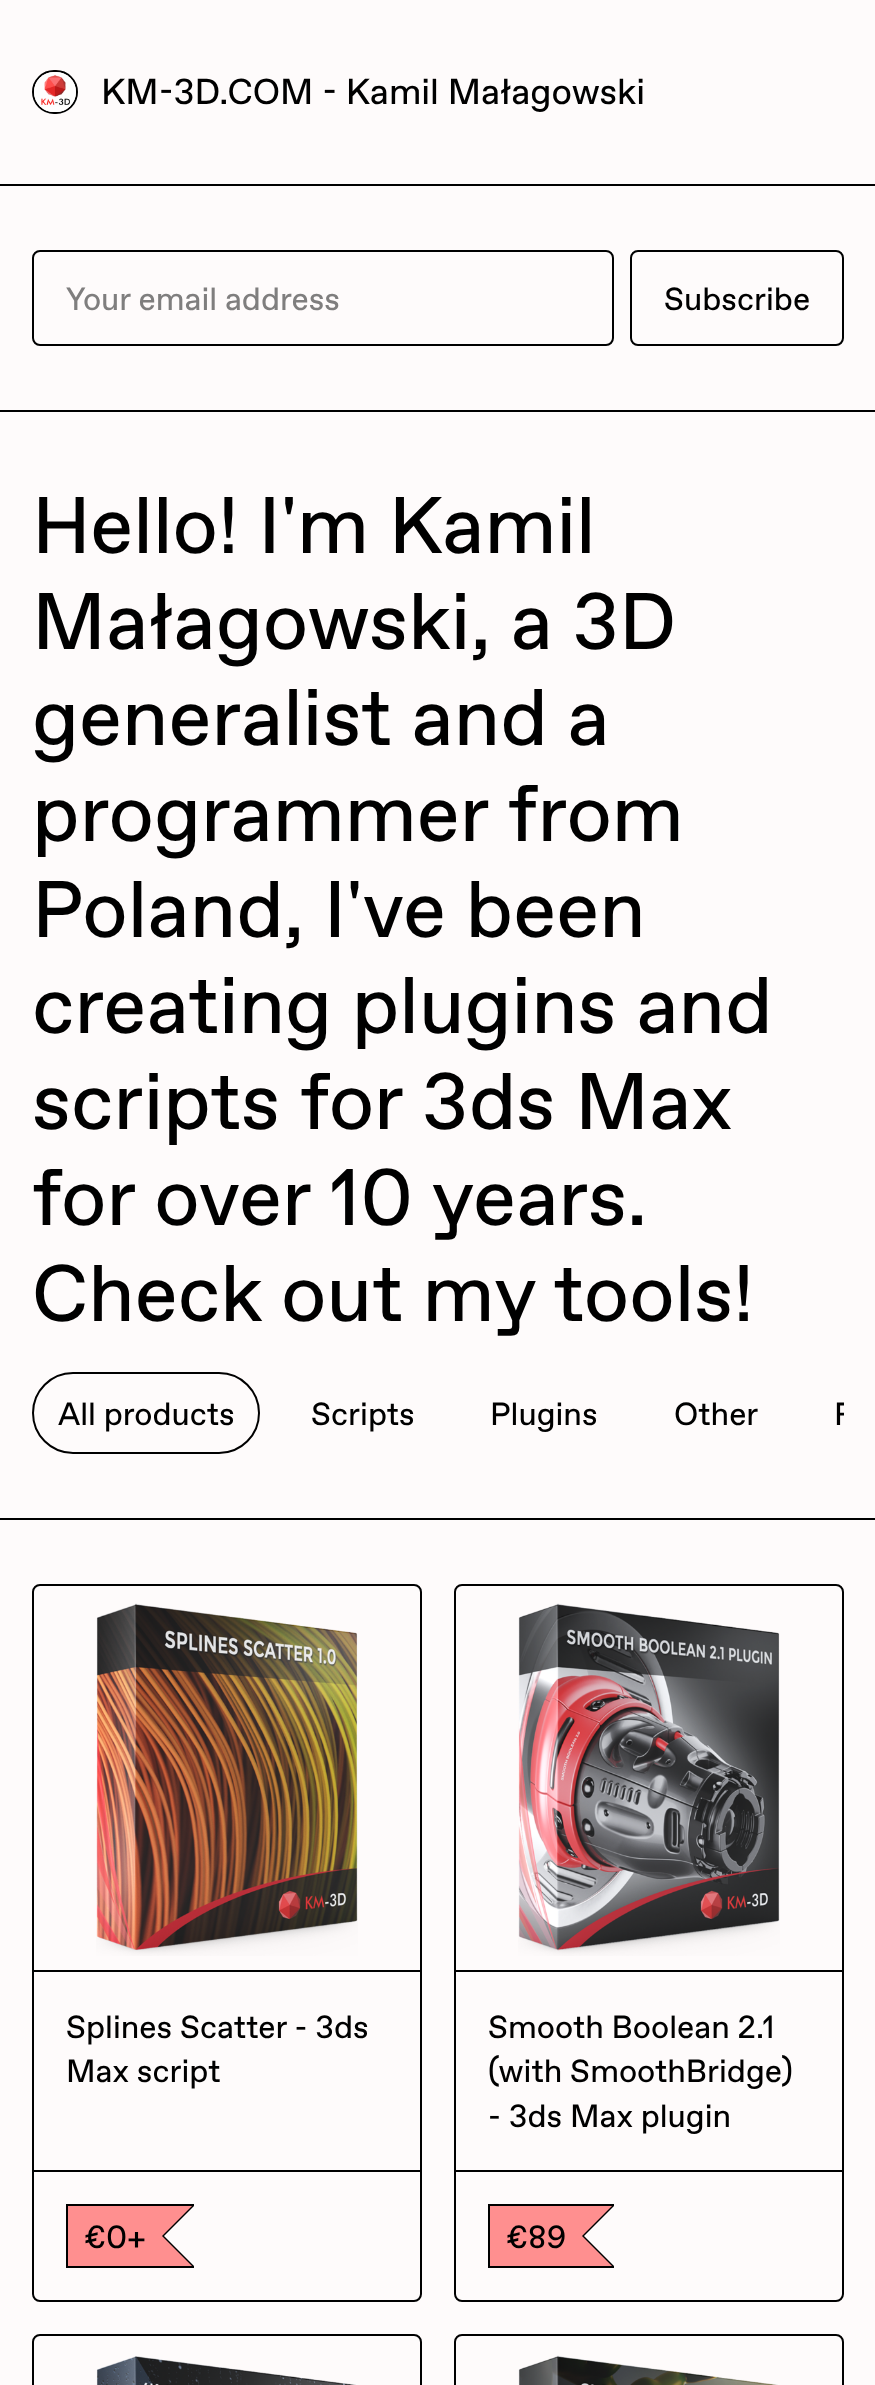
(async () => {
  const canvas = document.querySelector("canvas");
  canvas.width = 875;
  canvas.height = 2385;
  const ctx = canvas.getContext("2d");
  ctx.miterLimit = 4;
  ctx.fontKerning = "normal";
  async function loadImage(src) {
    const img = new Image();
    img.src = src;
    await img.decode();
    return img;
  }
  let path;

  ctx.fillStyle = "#fefbfb";
  ctx.fillRect(0, 0, 875, 2385);
  ctx.fillStyle = "#000000";
  ctx.fillRect(0, 184, 875, 2);
  ctx.beginPath();
  ctx.roundRect(33, 71, 44, 42, 21);
  ctx.strokeStyle = "#000000";
  ctx.lineWidth = 2;
  ctx.stroke();
  ctx.drawImage(await loadImage("img/1.png"), 34, 72, 42, 40);
  ctx.fillRect(0, 410, 875, 2);
  ctx.beginPath();
  ctx.roundRect(33, 251, 580, 94, 7);
  ctx.stroke();
  ctx.beginPath();
  ctx.roundRect(631, 251, 212, 94, 7);
  ctx.stroke();
  ctx.fillRect(0, 1518, 875, 2);
  ctx.beginPath();
  ctx.roundRect(33, 1373, 226, 80, 40);
  ctx.stroke();
  ctx.beginPath();
  ctx.roundRect(33, 1585, 388, 716, 7);
  ctx.stroke();
  ctx.fillRect(34, 1970, 386, 2);
  ctx.drawImage(await loadImage("img/2.png"), 96, 1603, 262, 353);
  for (const [x, y, w, h, color] of [
    [34, 2170, 386, 2, "#000000"],
    [66, 2204, 128, 2, "#000000"],
    [66, 2266, 128, 2, "#000000"],
    [66, 2204, 2, 64, "#000000"],
    [68, 2206, 94, 60, "#ff8f8f"],
  ]) {
    ctx.fillStyle = color;
    ctx.fillRect(x, y, w, h);
  }
  ctx.fillStyle = "#000000";
  path = new Path2D("M162 2206H194L164 2236ZM194 2266H162L164 2236Z");
  ctx.fill(path);
  ctx.fillRect(162, 2234, 2, 4);
  ctx.fillStyle = "#ff8f8f";
  path = new Path2D("M160 2206H192L162 2236ZM192 2266H160L162 2236Z");
  ctx.fill(path);
  ctx.beginPath();
  ctx.roundRect(455, 1585, 388, 716, 7);
  ctx.stroke();
  ctx.fillStyle = "#000000";
  ctx.fillRect(456, 1970, 386, 2);
  ctx.drawImage(await loadImage("img/3.png"), 518, 1603, 262, 353);
  for (const [x, y, w, h, color] of [
    [456, 2170, 386, 2, "#000000"],
    [488, 2204, 126, 2, "#000000"],
    [488, 2266, 126, 2, "#000000"],
    [488, 2204, 2, 64, "#000000"],
    [490, 2206, 92, 60, "#ff8f8f"],
  ]) {
    ctx.fillStyle = color;
    ctx.fillRect(x, y, w, h);
  }
  ctx.fillStyle = "#000000";
  path = new Path2D("M582 2206H614L584 2236ZM614 2266H582L584 2236Z");
  ctx.fill(path);
  ctx.fillRect(582, 2234, 2, 4);
  ctx.fillStyle = "#ff8f8f";
  path = new Path2D("M580 2206H612L582 2236ZM612 2266H580L582 2236Z");
  ctx.fill(path);
  ctx.beginPath();
  ctx.roundRect(33, 2335, 388, 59, 7);
  ctx.stroke();
  ctx.drawImage(await loadImage("img/4.png"), 96, 2356, 260, 29);
  ctx.beginPath();
  ctx.roundRect(455, 2335, 388, 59, 7);
  ctx.stroke();
  ctx.drawImage(await loadImage("img/5.png"), 518, 2355, 260, 30);
  ctx.font = "36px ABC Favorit";
  ctx.fillStyle = "#000000";
  ctx.fillText("KM-3D.COM - Kamil Małagowski", 101, 104);
  ctx.font = "32px ABC Favorit";
  ctx.fillStyle = "#7f7e7e";
  ctx.fillText("Your email address", 66, 310);
  ctx.fillStyle = "#000000";
  ctx.fillText("Subscribe", 664, 310);
  ctx.font = "80px ABC Favorit";
  for (const [text, x, y] of [
    ["Hello! I'm Kamil", 32, 553],
    ["Małagowski, a 3D", 32, 649],
    ["generalist and a", 32, 745],
    ["programmer from", 32, 841],
    ["Poland, I've been", 32, 937],
    ["creating plugins and", 32, 1033],
    ["scripts for 3ds Max", 32, 1129],
    ["for over 10 years.", 32, 1225],
    ["Check out my tools!", 32, 1321],
  ]) {
    ctx.fillText(text, x, y);
  }
  ctx.font = "32px ABC Favorit";
  for (const [text, x, y] of [
    ["All products", 58, 1425],
    ["Scripts", 311, 1425],
    ["Plugins", 490, 1425],
    ["Other", 674, 1425],
  ]) {
    ctx.fillText(text, x, y);
  }
  ctx.save();
  ctx.beginPath();
  ctx.rect(32, 1372, 812, 82);
  ctx.clip();
  ctx.fillText("F", 834, 1425);
  ctx.restore();
  for (const [text, x, y] of [
    ["Splines Scatter - 3ds", 66, 2038],
    ["Max script", 66, 2082],
    ["€0+", 84, 2248],
    ["Smooth Boolean 2.1", 488, 2038],
    ["(with SmoothBridge)", 488, 2082],
    ["- 3ds Max plugin", 488, 2127],
    ["€89", 506, 2248],
  ]) {
    ctx.fillText(text, x, y);
  }
})();
